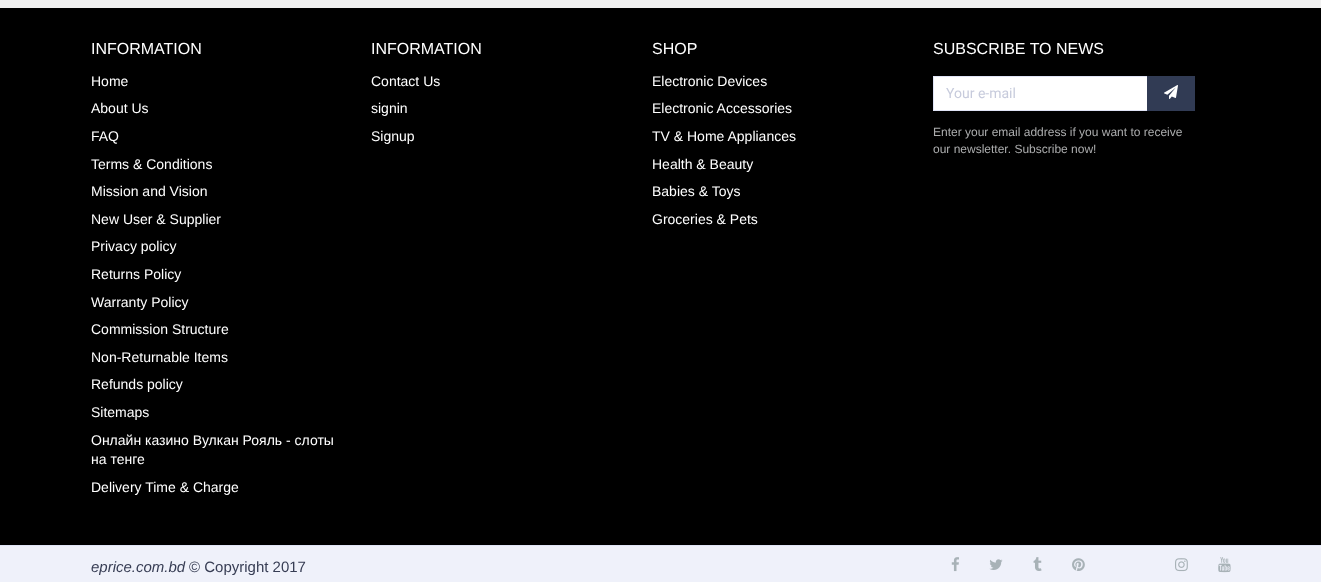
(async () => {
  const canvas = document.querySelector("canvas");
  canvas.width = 1321;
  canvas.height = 583;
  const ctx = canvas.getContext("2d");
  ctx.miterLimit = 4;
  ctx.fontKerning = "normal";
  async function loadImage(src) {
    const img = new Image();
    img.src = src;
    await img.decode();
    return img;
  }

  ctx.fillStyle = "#ffffff";
  ctx.fillRect(0, 0, 1321, 583);
  for (const [x, y, w, h, color] of [
    [0, 0, 1321, 8, "#f1f1f1"],
    [0, 8, 1321, 537, "#000000"],
    [934, 77, 213, 33, "#ffffff"],
  ]) {
    ctx.fillStyle = color;
    ctx.fillRect(x, y, w, h);
  }
  ctx.strokeStyle = "#e0e4f6";
  ctx.strokeRect(933.5, 76.5, 261, 34);
  ctx.fillStyle = "#313b54";
  ctx.fillRect(1147, 76, 48, 35);
  ctx.drawImage(await loadImage("img/1.png"), 1164, 85, 14, 14);
  ctx.fillStyle = "#eff1fa";
  ctx.fillRect(0, 546, 1321, 36);
  ctx.fillStyle = "#e0e4f6";
  ctx.fillRect(0, 545, 1321, 1);
  ctx.drawImage(await loadImage("img/2.png"), 951, 557, 8, 15);
  ctx.drawImage(await loadImage("img/3.png"), 989, 559, 14, 11);
  ctx.drawImage(await loadImage("img/4.png"), 1033, 557, 9, 14);
  ctx.drawImage(await loadImage("img/5.png"), 1072, 558, 13, 13);
  ctx.drawImage(await loadImage("img/6.png"), 1175, 558, 13, 14);
  ctx.drawImage(await loadImage("img/7.png"), 1218, 557, 13, 16);
  ctx.font = "16px Liberation Sans";
  ctx.fillStyle = "#ffffff";
  ctx.fillText("INFORMATION", 91, 54);
  ctx.font = "14px Liberation Sans";
  for (const [text, x, y] of [
    ["Home", 91, 86],
    ["About Us", 91, 113],
    ["FAQ", 91, 141],
    ["Terms & Conditions", 91, 169],
    ["Mission and Vision", 91, 196],
    ["New User & Supplier", 91, 224],
    ["Privacy policy", 91, 251],
    ["Returns Policy", 91, 279],
    ["Warranty Policy", 91, 307],
    ["Commission Structure", 91, 334],
    ["Non-Returnable Items", 91, 362],
    ["Refunds policy", 91, 389],
    ["Sitemaps", 91, 417],
    ["Онлайн казино Вулкан Рояль - слоты", 91, 445],
    ["на тенге", 91, 464],
    ["Delivery Time & Charge", 91, 492],
  ]) {
    ctx.fillText(text, x, y);
  }
  ctx.font = "16px Liberation Sans";
  ctx.fillText("INFORMATION", 371, 54);
  ctx.font = "14px Liberation Sans";
  for (const [text, x, y] of [
    ["Contact Us", 371, 86],
    ["signin", 371, 113],
    ["Signup", 371, 141],
  ]) {
    ctx.fillText(text, x, y);
  }
  ctx.font = "16px Liberation Sans";
  ctx.fillText("SHOP", 652, 54);
  ctx.font = "14px Liberation Sans";
  for (const [text, x, y] of [
    ["Electronic Devices", 652, 86],
    ["Electronic Accessories", 652, 113],
    ["TV & Home Appliances", 652, 141],
    ["Health & Beauty", 652, 169],
    ["Babies & Toys", 652, 196],
    ["Groceries & Pets", 652, 224],
  ]) {
    ctx.fillText(text, x, y);
  }
  ctx.font = "16px Liberation Sans";
  ctx.fillText("SUBSCRIBE TO NEWS", 933, 54);
  ctx.font = "14px Roboto";
  ctx.fillStyle = "#c7cbdc";
  ctx.fillText("Your e-mail", 946, 98);
  ctx.font = "12px Liberation Sans";
  ctx.fillStyle = "#acadae";
  ctx.fillText("Enter your email address if you want to receive", 933, 136);
  ctx.fillText("our newsletter. Subscribe now!", 933, 153);
  ctx.font = "italic 15px Liberation Sans";
  ctx.fillStyle = "#373d54";
  ctx.fillText("eprice.com.bd", 91, 572);
  ctx.font = "15px Liberation Sans";
  ctx.fillText("© Copyright 2017", 189, 572);
})();
